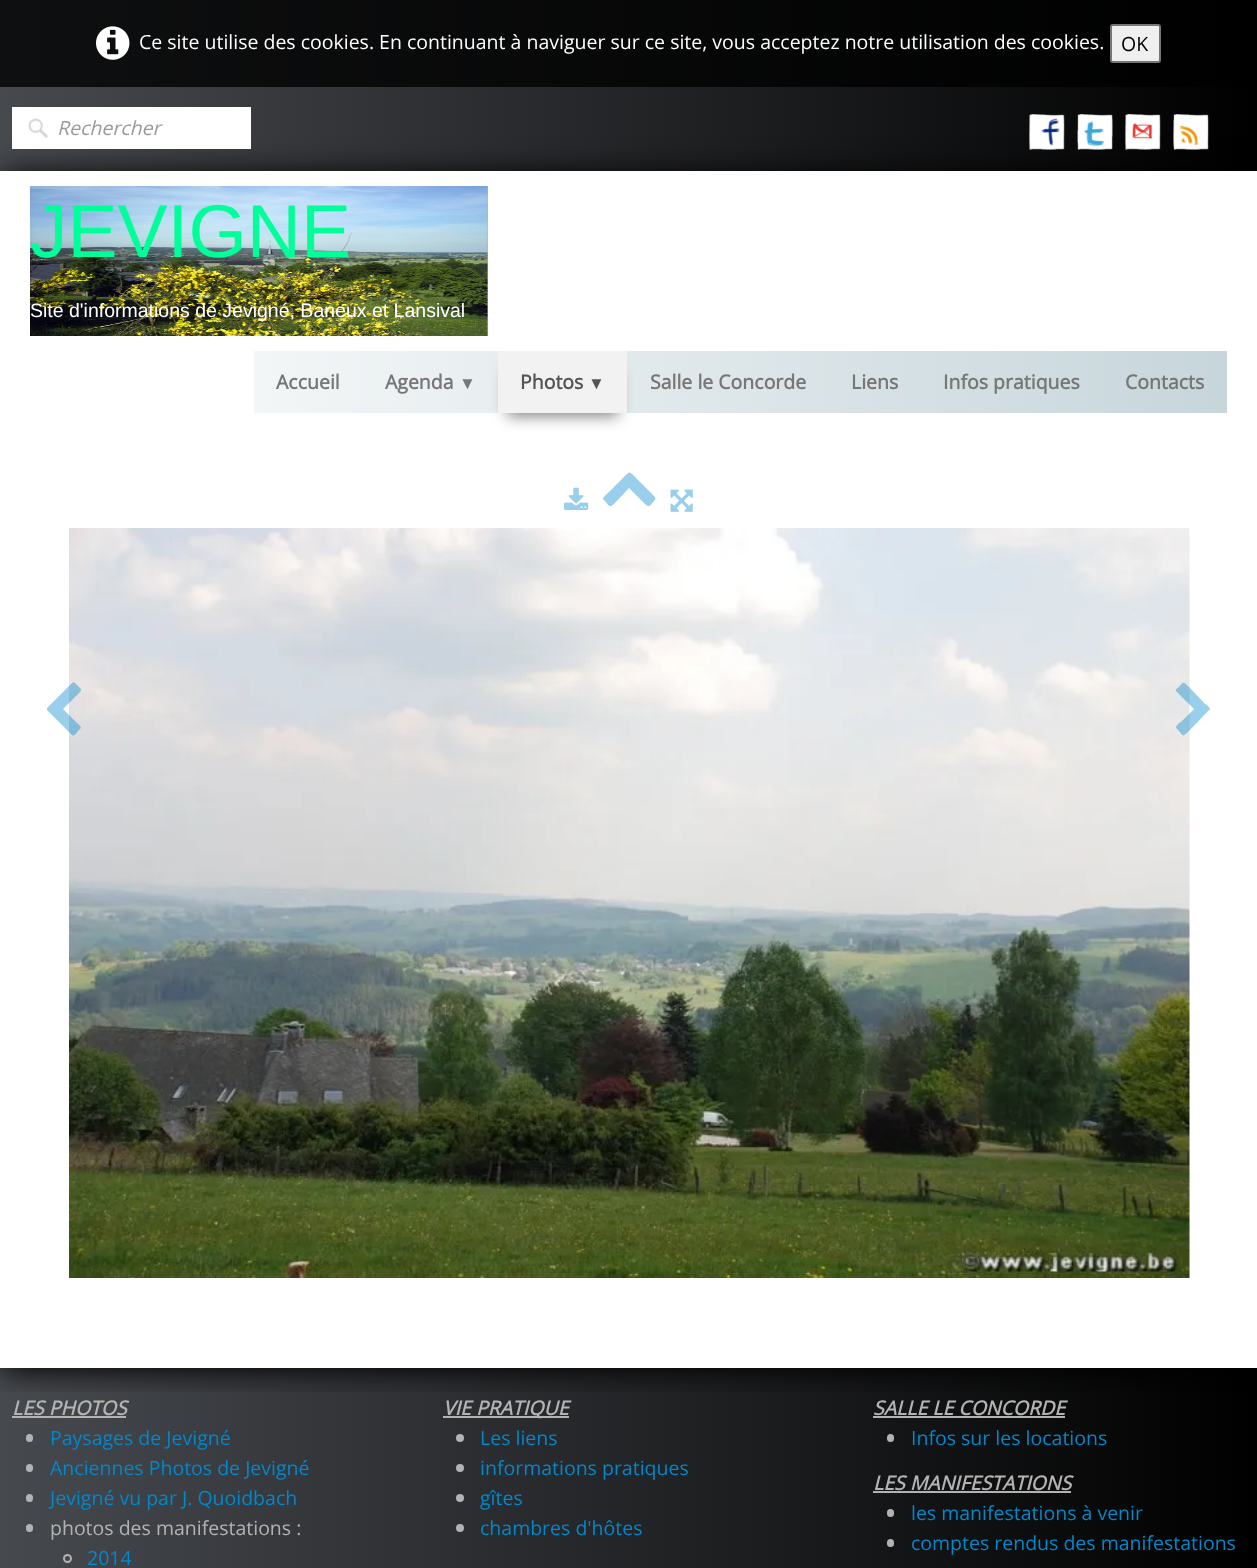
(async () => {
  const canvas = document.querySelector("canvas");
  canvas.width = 1257;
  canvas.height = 1568;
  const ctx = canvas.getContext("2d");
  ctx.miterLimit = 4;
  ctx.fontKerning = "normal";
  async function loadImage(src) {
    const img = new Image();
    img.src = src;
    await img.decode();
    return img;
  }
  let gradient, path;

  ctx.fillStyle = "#ffffff";
  ctx.fillRect(0, 0, 1257, 1568);
  gradient = ctx.createLinearGradient(0, 973, 1257, 973);
  gradient.addColorStop(0, "#46494e");
  gradient.addColorStop(1, "#000000");
  ctx.fillStyle = gradient;
  ctx.fillRect(0, 87, 1257, 1305);
  gradient = ctx.createLinearGradient(0, 973, 1257, 973);
  gradient.addColorStop(0, "#0e0f10");
  gradient.addColorStop(1, "#000000");
  ctx.fillStyle = gradient;
  ctx.fillRect(0, 0, 1257, 87);
  ctx.drawImage(await loadImage("img/1.png"), 96, 26, 34, 34);
  ctx.fillStyle = "#efefef";
  ctx.beginPath();
  ctx.roundRect(1111, 25, 49, 37, 2);
  ctx.fill();
  ctx.strokeStyle = "#767676";
  ctx.lineWidth = 2;
  ctx.stroke();
  ctx.fillStyle = "#000000";
  ctx.filter = "blur(15px)";
  ctx.beginPath();
  ctx.rect(3, 174, 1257, 1197);
  ctx.fill();
  ctx.filter = "none";
  ctx.fillStyle = "#ffffff";
  ctx.fillRect(12, 107, 239, 42);
  ctx.drawImage(await loadImage("img/2.png"), 28, 118, 20, 20);
  ctx.drawImage(await loadImage("img/3.png"), 1029, 114, 36, 36);
  ctx.drawImage(await loadImage("img/4.png"), 1077, 114, 36, 36);
  ctx.drawImage(await loadImage("img/5.png"), 1125, 114, 36, 36);
  ctx.drawImage(await loadImage("img/6.png"), 1173, 114, 36, 36);
  ctx.fillRect(0, 171, 1257, 1197);
  ctx.fillStyle = "#b5b5b5";
  ctx.fillRect(487, 186, 1, 150);
  ctx.drawImage(await loadImage("img/7.png"), 30, 186, 458, 150);
  gradient = ctx.createLinearGradient(254, 382, 1227, 382);
  gradient.addColorStop(0, "#f3f6f7");
  gradient.addColorStop(0.37, "#e3eaed");
  gradient.addColorStop(1, "#c7d6db");
  ctx.fillStyle = gradient;
  ctx.fillRect(254, 351, 973, 62);
  ctx.fillStyle = "rgba(0, 0, 0, 0.5)";
  ctx.filter = "blur(7.5px)";
  ctx.beginPath();
  ctx.rect(507, 372, 111, 44);
  ctx.fill();
  ctx.filter = "none";
  ctx.fillStyle = "#f2f2f2";
  ctx.fillRect(498, 351, 129, 62);
  ctx.drawImage(await loadImage("img/8.png"), 564, 487, 25, 23);
  ctx.fillStyle = "#99cfeb";
  path = new Path2D("M655 500C649 506 650 509 644 503L629 488L615 503C609 508 610 507 605 501C601 498 604 497 608 493L624 477C630 471 629 471 635 477L651 493C652 494 657 498 655 500Z");
  ctx.fill(path);
  ctx.drawImage(await loadImage("img/9.png"), 670, 489, 23, 23);
  ctx.drawImage(await loadImage("img/10.png"), 69, 528, 1121, 750);
  ctx.fillStyle = "rgba(0, 136, 204, 0.4)";
  path = new Path2D("M80 692L63 709L77 723C82 728 82 727 78 731C73 737 74 737 68 731L47 710V708L72 683C74 681 76 684 77 685L81 689C81 690 81 691 80 692Z");
  ctx.fill(path);
  path = new Path2D("M1209 710L1189 731C1182 737 1184 737 1178 730C1173 726 1179 724 1182 721L1194 709L1176 691C1175 689 1178 688 1179 687C1184 681 1183 682 1189 687L1205 704C1206 704 1210 707 1210 710Z");
  ctx.fill(path);
  gradient = ctx.createLinearGradient(0, 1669, 1257, 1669);
  gradient.addColorStop(0, "#46494e");
  gradient.addColorStop(1, "#000000");
  ctx.fillStyle = gradient;
  ctx.fillRect(0, 1392, 1257, 176);
  ctx.fillStyle = "#b3b3b3";
  ctx.fillRect(12, 1416, 114, 2);
  ctx.beginPath();
  ctx.roundRect(26, 1434, 7, 8, 3.5);
  ctx.fill();
  ctx.beginPath();
  ctx.roundRect(26, 1464, 7, 8, 3.5);
  ctx.fill();
  ctx.beginPath();
  ctx.roundRect(26, 1494, 7, 8, 3.5);
  ctx.fill();
  ctx.beginPath();
  ctx.roundRect(26, 1524, 7, 8, 3.5);
  ctx.fill();
  ctx.beginPath();
  ctx.arc(67.5, 1558.5, 3.5, 0, Math.PI * 2);
  ctx.strokeStyle = "#b3b3b3";
  ctx.stroke();
  ctx.fillRect(443, 1416, 126, 2);
  ctx.beginPath();
  ctx.arc(460, 1438, 4, 0, Math.PI * 2);
  ctx.fill();
  ctx.beginPath();
  ctx.arc(460, 1468, 4, 0, Math.PI * 2);
  ctx.fill();
  ctx.beginPath();
  ctx.arc(460, 1498, 4, 0, Math.PI * 2);
  ctx.fill();
  ctx.beginPath();
  ctx.arc(460, 1528, 4, 0, Math.PI * 2);
  ctx.fill();
  ctx.fillRect(873, 1416, 192, 2);
  ctx.beginPath();
  ctx.roundRect(887, 1434, 7, 8, 3.5);
  ctx.fill();
  ctx.fillRect(873, 1491, 198, 2);
  ctx.beginPath();
  ctx.roundRect(887, 1509, 7, 8, 3.5);
  ctx.fill();
  ctx.beginPath();
  ctx.roundRect(887, 1539, 7, 8, 3.5);
  ctx.fill();
  ctx.font = "19.5px Open Sans";
  ctx.fillStyle = "#ffffff";
  ctx.fillText("Ce site utilise des cookies. En continuant à naviguer sur ce site, vous acceptez notre utilisation des cookies.", 139, 49);
  ctx.fillStyle = "#000000";
  ctx.fillText("OK", 1121, 51);
  ctx.font = "italic 19.5px Open Sans";
  ctx.fillStyle = "#999999";
  ctx.fillText("Rechercher", 57, 135);
  ctx.font = "75px Liberation Sans";
  ctx.fillStyle = "#00ff99";
  ctx.fillText("JEVIGNE", 30, 257);
  ctx.font = "19.5px Liberation Sans";
  ctx.fillStyle = "#ffffff";
  ctx.fillText("Site d'informations de Jevigné, Baneux et Lansival", 30, 317);
  ctx.font = "bold 19.5px Open Sans";
  ctx.fillStyle = "#777777";
  ctx.fillText("Accueil", 276, 389);
  ctx.fillText("Agenda", 385, 389);
  ctx.font = "bold 17px Liberation Sans";
  ctx.fillText("▼", 459, 389);
  ctx.font = "bold 19.5px Open Sans";
  ctx.fillStyle = "#555555";
  ctx.fillText("Photos", 520, 389);
  ctx.font = "bold 17px Liberation Sans";
  ctx.fillText("▼", 588, 389);
  ctx.font = "bold 19.5px Open Sans";
  ctx.fillStyle = "#777777";
  for (const [text, x, y] of [
    ["Salle le Concorde", 650, 389],
    ["Liens", 851, 389],
    ["Infos pratiques", 943, 389],
    ["Contacts", 1125, 389],
  ]) {
    ctx.fillText(text, x, y);
  }
  ctx.font = "italic bold 19.5px Open Sans";
  ctx.fillStyle = "#b3b3b3";
  ctx.fillText("LES PHOTOS", 12, 1415);
  ctx.font = "19.5px Open Sans";
  ctx.fillStyle = "#0088cc";
  for (const [text, x, y] of [
    ["Paysages de Jevigné", 50, 1445],
    ["Anciennes Photos de Jevigné", 50, 1475],
    ["Jevigné vu par J. Quoidbach", 50, 1505],
  ]) {
    ctx.fillText(text, x, y);
  }
  ctx.fillStyle = "#b3b3b3";
  ctx.fillText("photos des manifestations :", 50, 1535);
  ctx.fillStyle = "#0088cc";
  ctx.fillText("2014", 87, 1565);
  ctx.font = "italic bold 19.5px Open Sans";
  ctx.fillStyle = "#b3b3b3";
  ctx.fillText("VIE PRATIQUE", 443, 1415);
  ctx.font = "19.5px Open Sans";
  ctx.fillStyle = "#0088cc";
  for (const [text, x, y] of [
    ["Les liens", 480, 1445],
    ["informations pratiques", 480, 1475],
    ["gîtes", 480, 1505],
    ["chambres d'hôtes", 480, 1535],
  ]) {
    ctx.fillText(text, x, y);
  }
  ctx.font = "italic bold 19.5px Open Sans";
  ctx.fillStyle = "#b3b3b3";
  ctx.fillText("SALLE LE CONCORDE", 873, 1415);
  ctx.font = "19.5px Open Sans";
  ctx.fillStyle = "#0088cc";
  ctx.fillText("Infos sur les locations", 911, 1445);
  ctx.font = "italic bold 19.5px Open Sans";
  ctx.fillStyle = "#b3b3b3";
  ctx.fillText("LES MANIFESTATIONS", 873, 1490);
  ctx.font = "19.5px Open Sans";
  ctx.fillStyle = "#0088cc";
  ctx.fillText("les manifestations à venir", 911, 1520);
  ctx.fillText("comptes rendus des manifestations", 911, 1550);
})();
